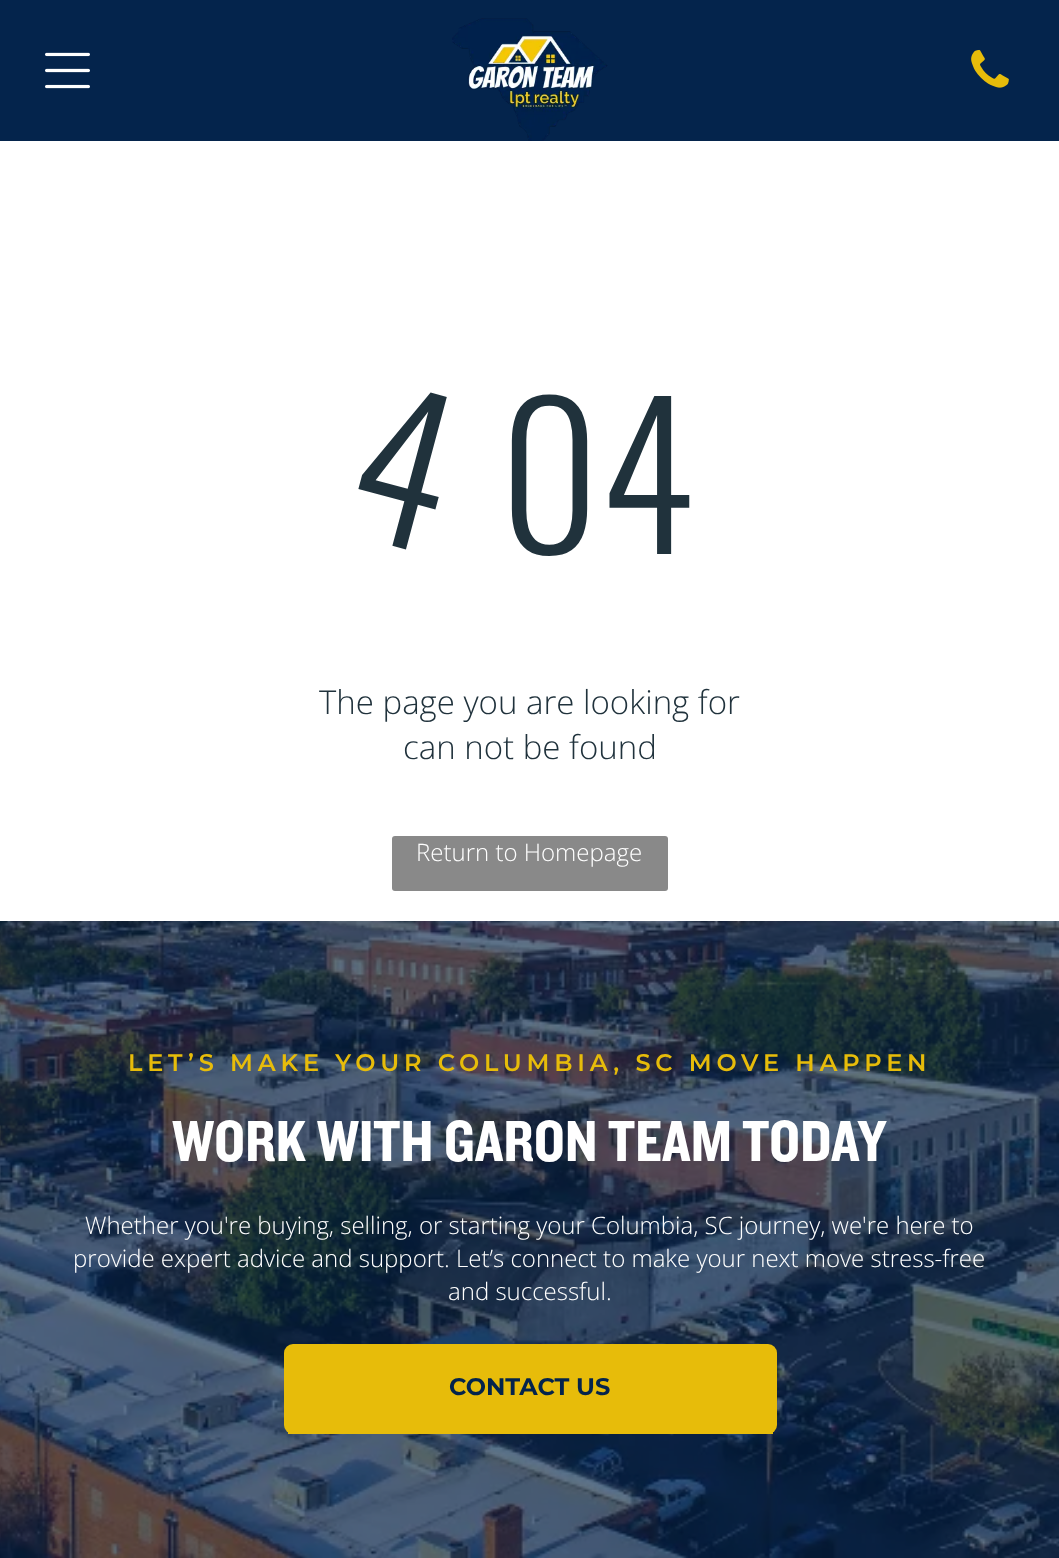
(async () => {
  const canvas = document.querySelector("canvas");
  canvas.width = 1059;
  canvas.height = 1558;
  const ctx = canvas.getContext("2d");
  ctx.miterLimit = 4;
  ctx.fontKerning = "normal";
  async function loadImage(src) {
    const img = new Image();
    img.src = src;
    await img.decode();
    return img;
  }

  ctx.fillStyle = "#04244c";
  ctx.fillRect(0, 0, 1059, 1558);
  ctx.drawImage(await loadImage("img/1.png"), 45, 52, 45, 37);
  ctx.drawImage(await loadImage("img/2.png"), 452, 18, 156, 123);
  ctx.drawImage(await loadImage("img/3.png"), 971, 49, 38, 39);
  ctx.fillStyle = "#ffffff";
  ctx.fillRect(0, 141, 1059, 780);
  ctx.fillStyle = "#898989";
  ctx.beginPath();
  ctx.roundRect(392, 836, 276, 55, 3);
  ctx.fill();
  ctx.drawImage(await loadImage("img/4.png"), 0, 921, 1059, 637);
  ctx.fillStyle = "#e7bc0a";
  ctx.beginPath();
  ctx.roundRect(284, 1344, 493, 90, 9);
  ctx.fill();
  ctx.fillRect(288, 1432, 485, 2);
  ctx.font = "300 195px Oswald";
  ctx.fillStyle = "#20323c";
  ctx.save();
  ctx.translate(337, 531);
  ctx.rotate(15 * Math.PI / 180);
  ctx.fillText("4", 0, 0);
  ctx.restore();
  ctx.fillText("04", 499, 554);
  ctx.font = "300 33px Open Sans";
  ctx.fillText("The page you are looking for", 319, 714);
  ctx.fillText("can not be found", 403, 759);
  ctx.font = "300 24px Open Sans";
  ctx.fillStyle = "#ffffff";
  ctx.fillText("Return to Homepage", 416, 861);
  ctx.letterSpacing = "4.8px";
  ctx.font = "600 24px Montserrat";
  ctx.fillStyle = "#e7bc0a";
  ctx.fillText("LET’S MAKE YOUR COLUMBIA, SC MOVE HAPPEN", 128, 1071);
  ctx.letterSpacing = "0px";
  ctx.font = "500 60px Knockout";
  ctx.fillStyle = "#ffffff";
  ctx.fillText("WORK WITH GARON TEAM TODAY", 172, 1161);
  ctx.font = "300 24px Open Sans";
  for (const [text, x, y] of [
    ["Whether you're buying, selling, or starting your Columbia, SC journey, we're here to", 85, 1234],
    ["provide expert advice and support. Let’s connect to make your next move stress-free", 73, 1267],
    ["and successful.", 448, 1300],
  ]) {
    ctx.fillText(text, x, y);
  }
  ctx.font = "bold 24px Montserrat";
  ctx.fillStyle = "#04244c";
  ctx.fillText("CONTACT US", 449, 1395);
})();
